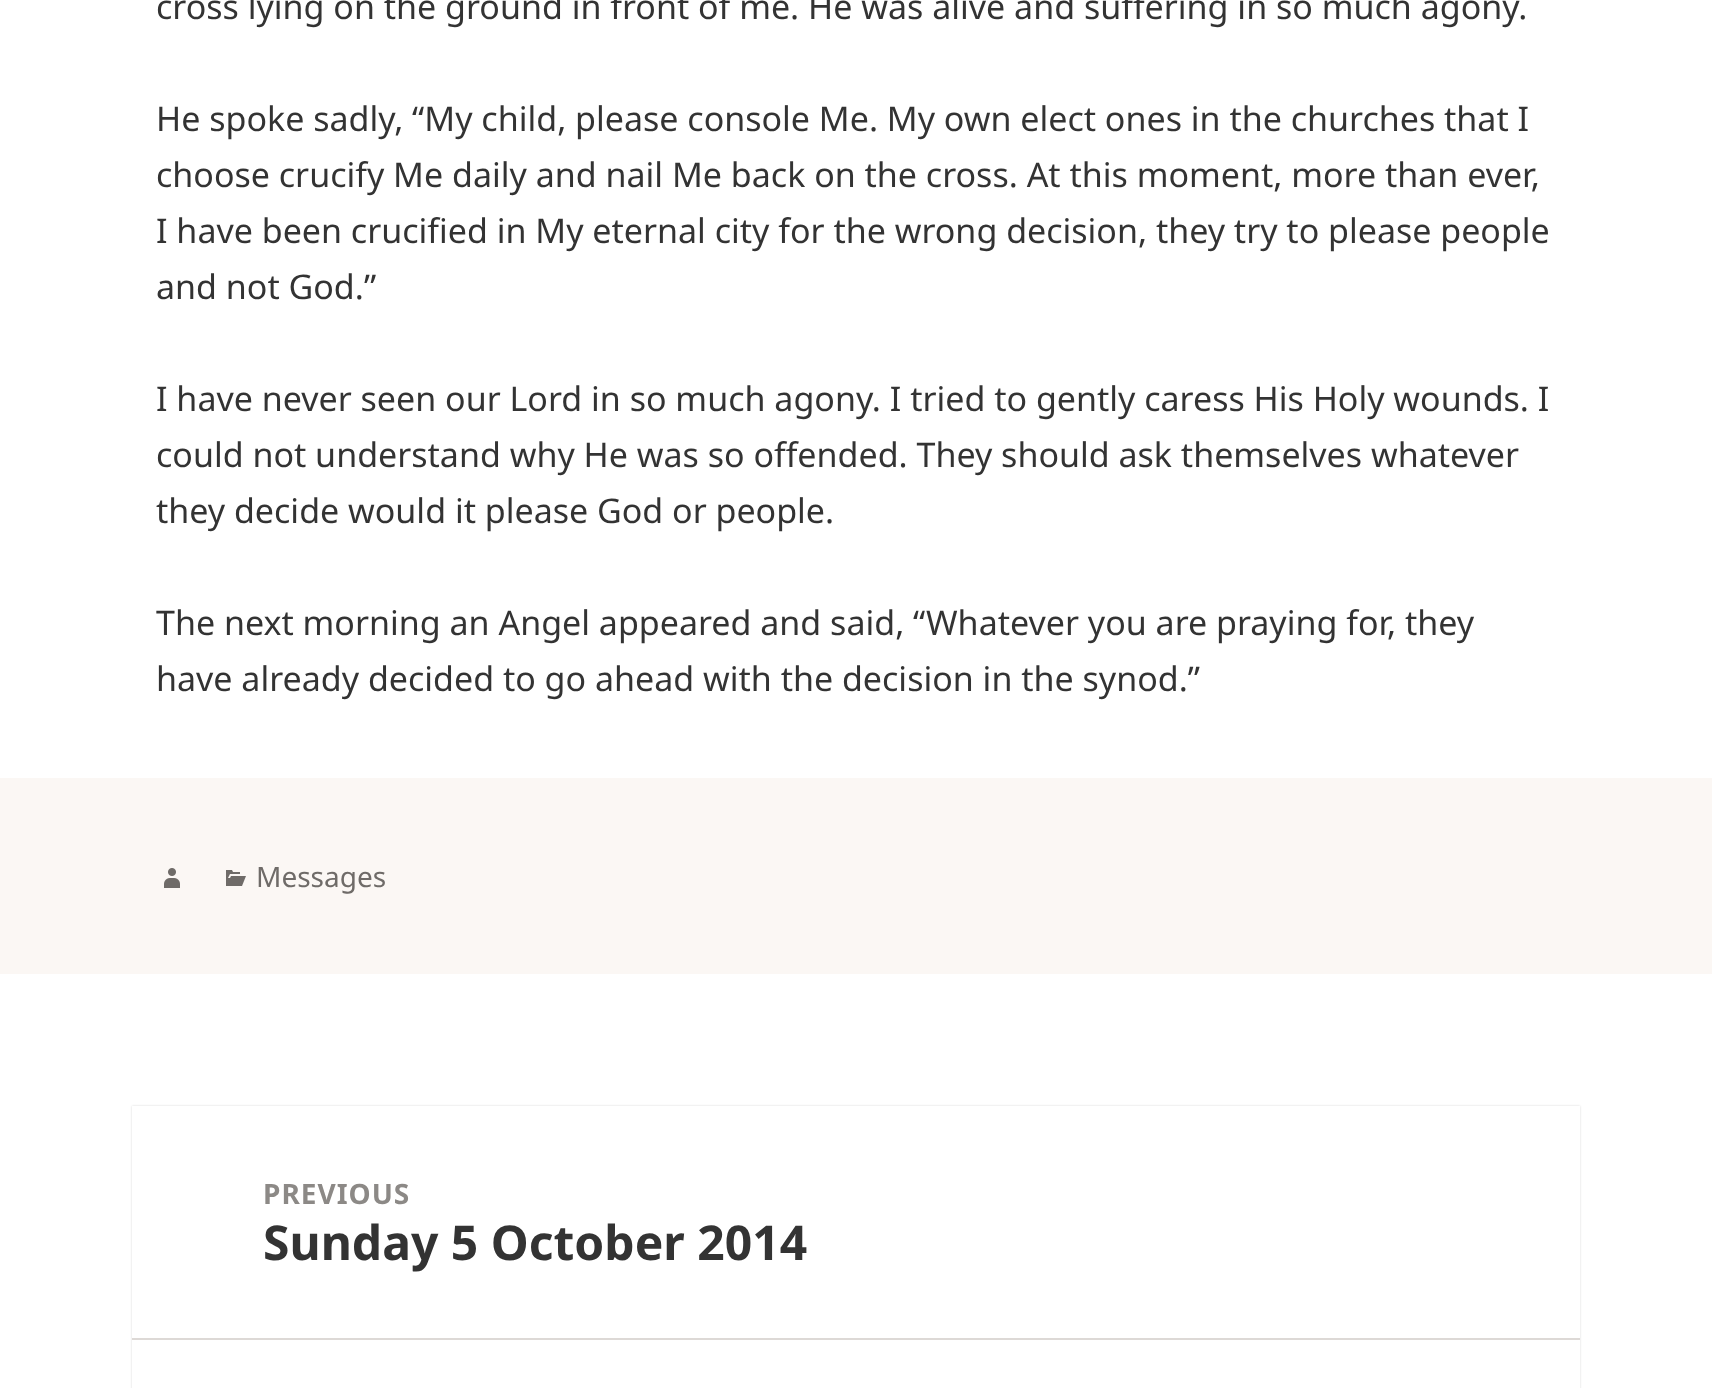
(async () => {
  const canvas = document.querySelector("canvas");
  canvas.width = 1712;
  canvas.height = 1388;
  const ctx = canvas.getContext("2d");
  ctx.miterLimit = 4;
  ctx.fontKerning = "normal";
  async function loadImage(src) {
    const img = new Image();
    img.src = src;
    await img.decode();
    return img;
  }
  let path;

  ctx.fillStyle = "#ffffff";
  ctx.fillRect(0, 0, 1712, 1388);
  ctx.fillStyle = "#fbf7f4";
  ctx.fillRect(0, 778, 1712, 196);
  ctx.drawImage(await loadImage("img/1.png"), 164, 868, 16, 20);
  ctx.drawImage(await loadImage("img/2.png"), 226, 870, 20, 16);
  ctx.save();
  path = new Path2D("M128 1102H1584V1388H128ZM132 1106H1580V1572H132Z");
  ctx.clip(path, "evenodd");
  ctx.fillStyle = "rgba(0, 0, 0, 0.15)";
  ctx.filter = "blur(1px)";
  ctx.beginPath();
  ctx.rect(132, 1106, 1448, 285);
  ctx.fill();
  ctx.filter = "none";
  ctx.restore();
  ctx.fillStyle = "#ddd9d6";
  ctx.fillRect(132, 1338, 1448, 2);
  ctx.font = "34px Noto Sans";
  ctx.fillStyle = "#333333";
  for (const [text, x, y] of [
    ["cross lying on the ground in front of me. He was alive and suffering in so much agony.", 156, 19],
    ["He spoke sadly, “My child, please console Me. My own elect ones in the churches that I", 156, 131],
    ["choose crucify Me daily and nail Me back on the cross. At this moment, more than ever,", 156, 187],
    ["I have been crucified in My eternal city for the wrong decision, they try to please people", 156, 243],
    ["and not God.”", 156, 299],
    ["I have never seen our Lord in so much agony. I tried to gently caress His Holy wounds. I", 156, 411],
    ["could not understand why He was so offended. They should ask themselves whatever", 156, 467],
    ["they decide would it please God or people.", 156, 523],
    ["The next morning an Angel appeared and said, “Whatever you are praying for, they", 156, 635],
    ["have already decided to go ahead with the decision in the synod.”", 156, 691],
  ]) {
    ctx.fillText(text, x, y);
  }
  ctx.font = "28px Noto Sans";
  ctx.fillStyle = "#6f6b68";
  ctx.fillText("Messages", 256, 887);
  ctx.letterSpacing = "1px";
  ctx.font = "bold 28px Noto Sans";
  ctx.fillStyle = "#8c8986";
  ctx.fillText("PREVIOUS", 263, 1204);
  ctx.letterSpacing = "0px";
  ctx.font = "bold 48px Noto Sans";
  ctx.fillStyle = "#333333";
  ctx.fillText("Sunday 5 October 2014", 263, 1260);
})();
